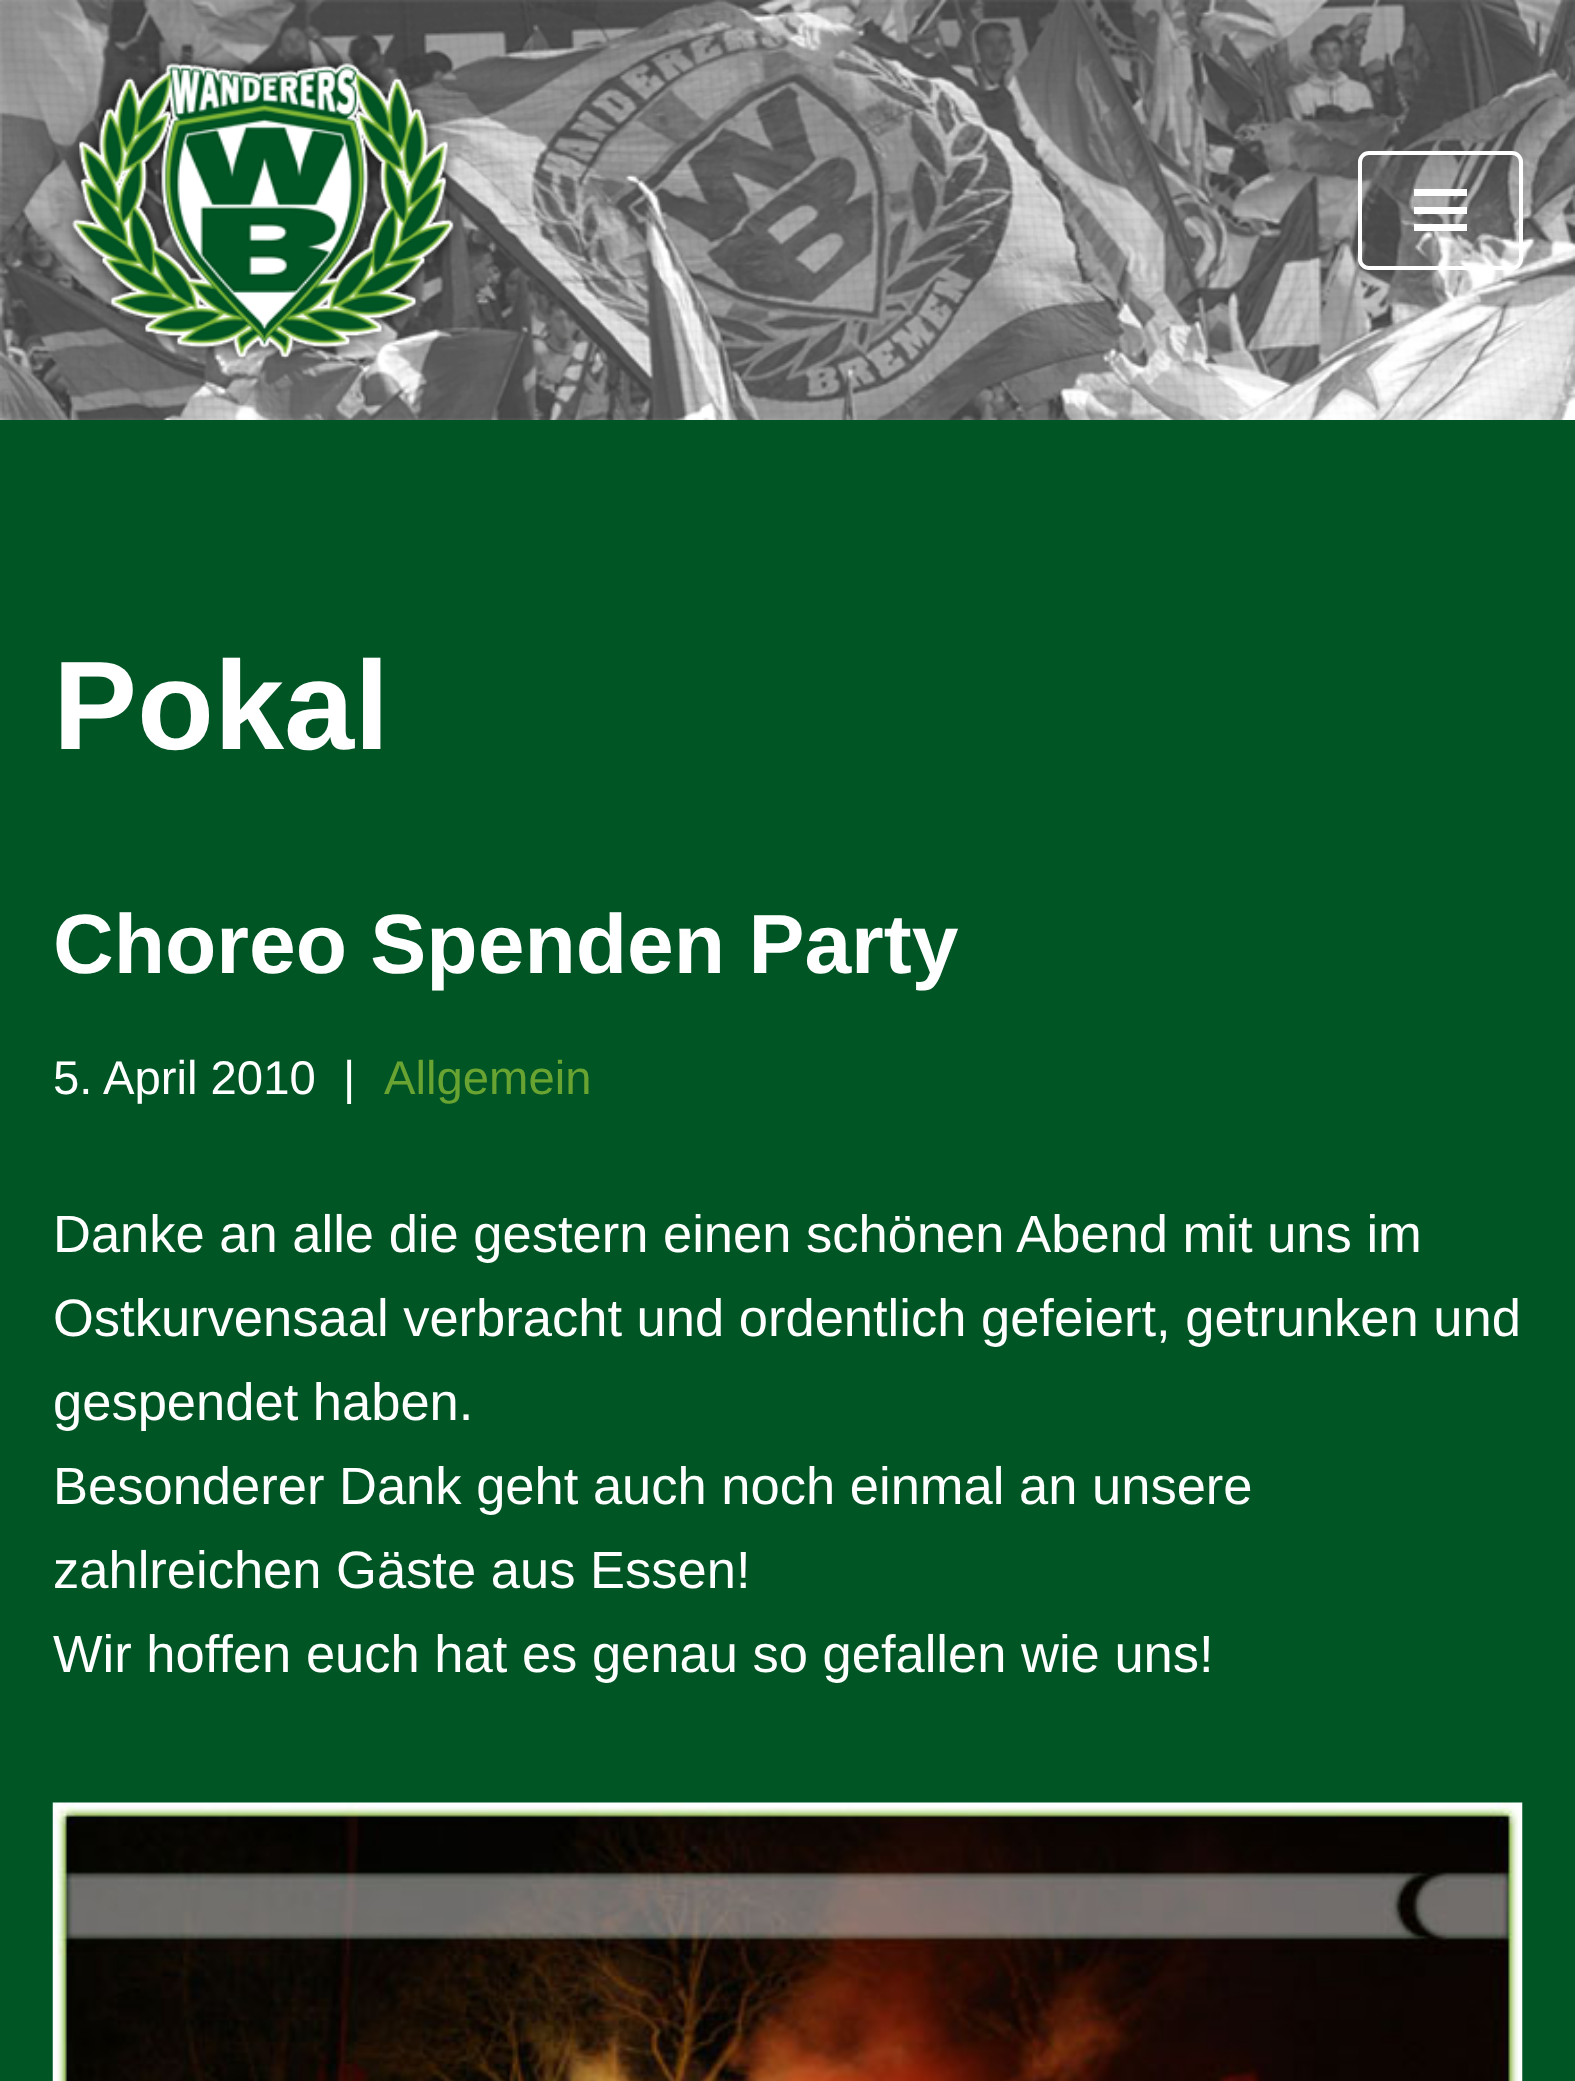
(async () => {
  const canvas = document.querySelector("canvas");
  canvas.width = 1575;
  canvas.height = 2081;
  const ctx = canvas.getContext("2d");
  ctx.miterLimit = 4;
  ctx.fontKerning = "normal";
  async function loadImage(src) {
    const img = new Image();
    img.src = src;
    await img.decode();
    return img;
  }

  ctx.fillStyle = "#005525";
  ctx.fillRect(0, 0, 1575, 2081);
  ctx.drawImage(await loadImage("img/1.png"), 0, 0, 1575, 420);
  ctx.drawImage(await loadImage("img/2.png"), 65, 53, 395, 311);
  ctx.beginPath();
  ctx.roundRect(1360, 153, 161, 115, 9);
  ctx.strokeStyle = "#ffffff";
  ctx.lineWidth = 4;
  ctx.stroke();
  for (const [x, y, w, h, color] of [
    [1414, 189, 53, 7, "#ffffff"],
    [1414, 207, 53, 7, "#ffffff"],
    [1414, 224, 53, 7, "#ffffff"],
  ]) {
    ctx.fillStyle = color;
    ctx.fillRect(x, y, w, h);
  }
  ctx.drawImage(await loadImage("img/3.png"), 52, 1802, 1471, 279);
  ctx.font = "bold 126px Liberation Sans";
  ctx.fillText("Pokal", 53, 749);
  ctx.font = "bold 84px Liberation Sans";
  ctx.fillText("Choreo Spenden Party", 53, 973);
  ctx.font = "47.25px Liberation Sans";
  ctx.fillText("5. April 2010", 53, 1094);
  ctx.fillText("|", 343, 1094);
  ctx.fillStyle = "#69a331";
  ctx.fillText("Allgemein", 384, 1094);
  ctx.font = "52.5px Liberation Sans";
  ctx.fillStyle = "#ffffff";
  for (const [text, x, y] of [
    ["Danke an alle die gestern einen schönen Abend mit uns im", 53, 1252],
    ["Ostkurvensaal verbracht und ordentlich gefeiert, getrunken und", 53, 1336],
    ["gespendet haben.", 53, 1420],
    ["Besonderer Dank geht auch noch einmal an unsere", 53, 1504],
    ["zahlreichen Gäste aus Essen!", 53, 1588],
    ["Wir hoffen euch hat es genau so gefallen wie uns!", 53, 1672],
  ]) {
    ctx.fillText(text, x, y);
  }
})();
